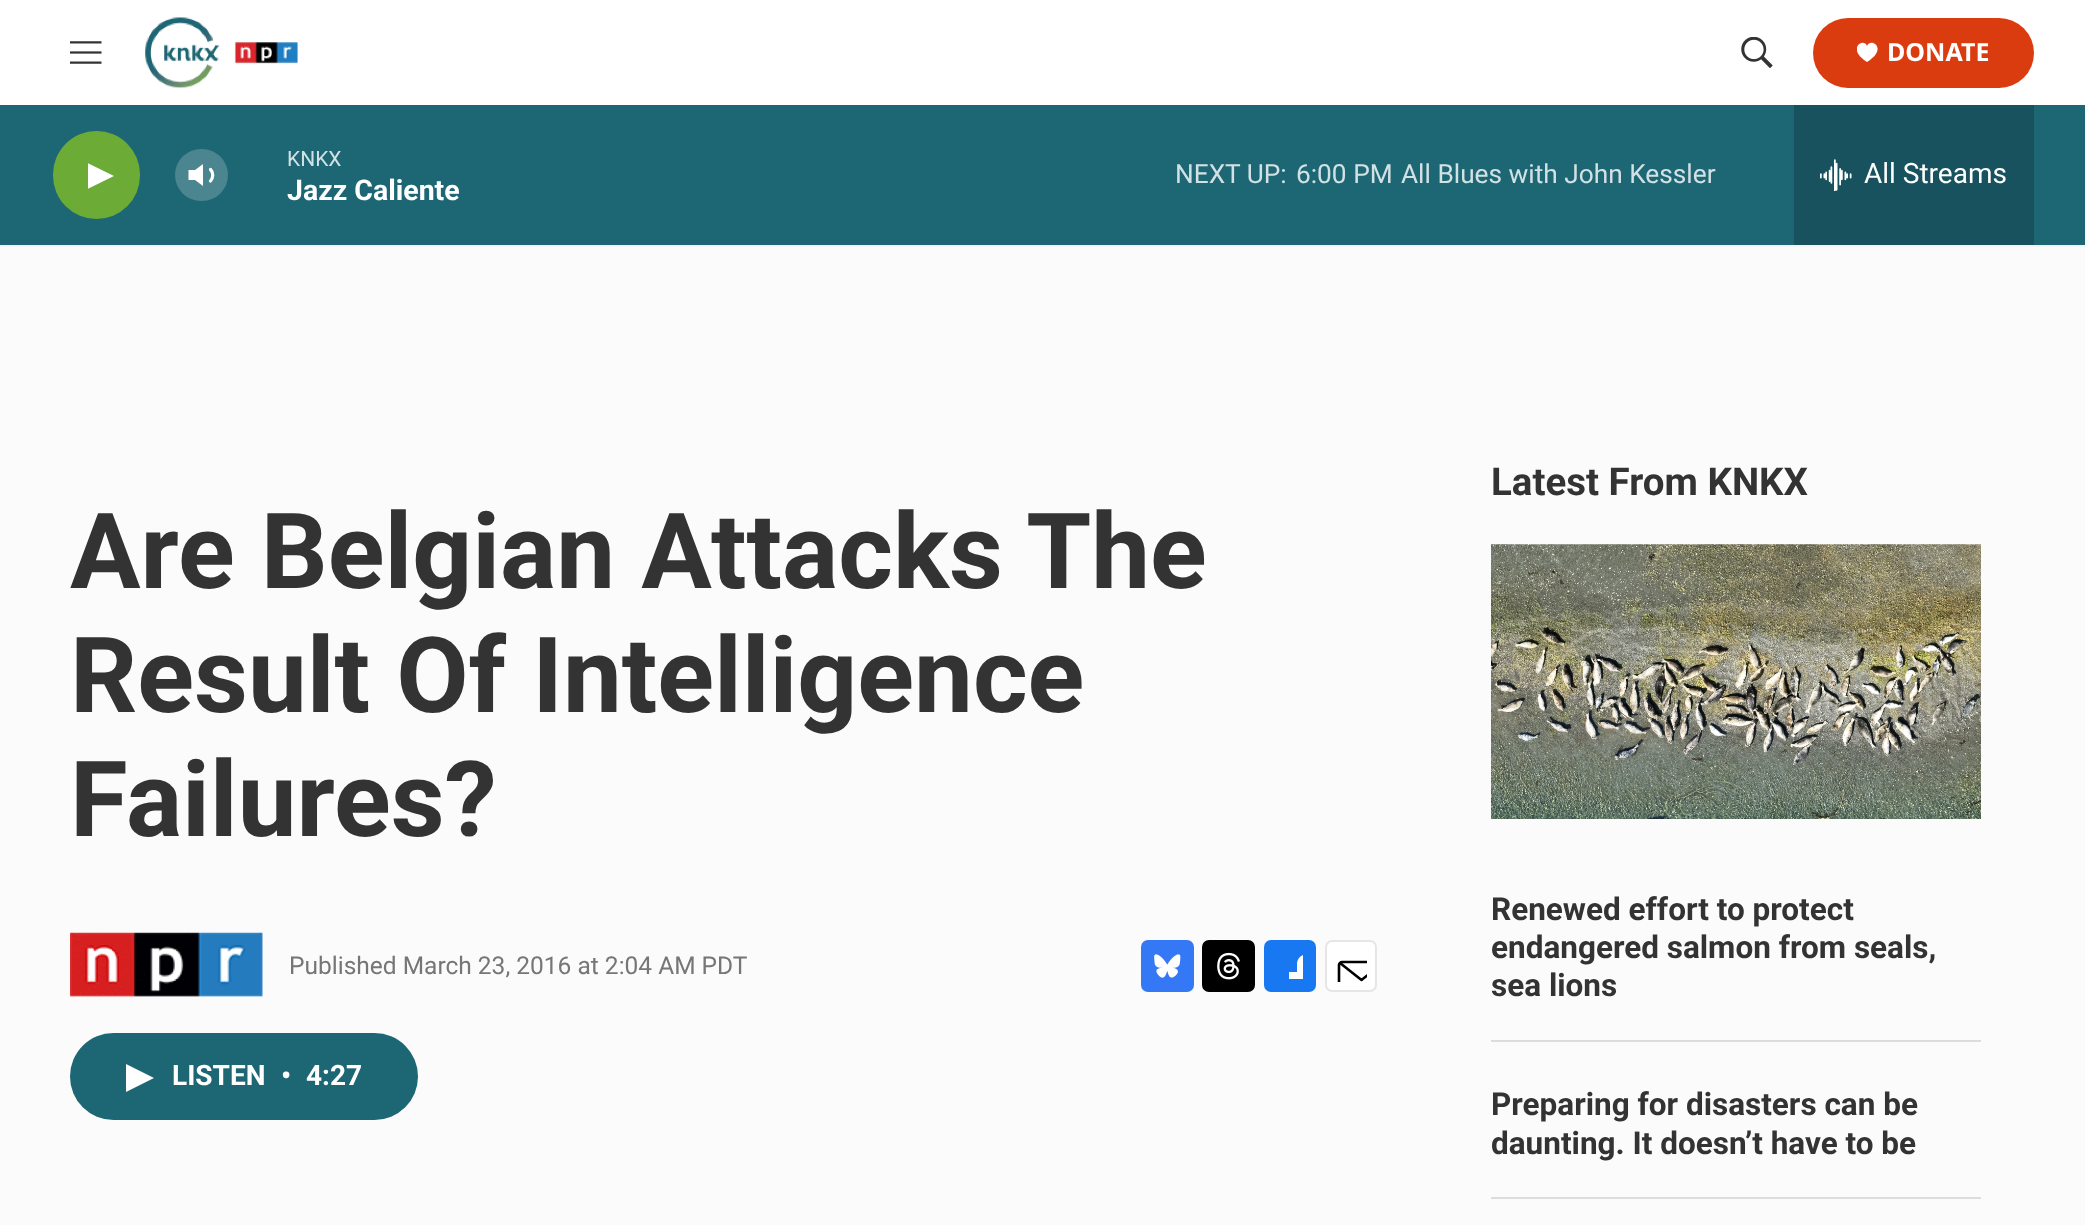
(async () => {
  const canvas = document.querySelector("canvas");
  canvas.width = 2085;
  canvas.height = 1225;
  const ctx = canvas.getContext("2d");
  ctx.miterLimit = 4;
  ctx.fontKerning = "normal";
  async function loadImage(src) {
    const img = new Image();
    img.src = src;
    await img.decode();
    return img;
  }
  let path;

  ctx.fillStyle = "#fbfbfb";
  ctx.fillRect(0, 0, 2085, 1225);
  ctx.fillStyle = "#ffffff";
  ctx.fillRect(0, 0, 2085, 105);
  ctx.fillStyle = "#f5f5f5";
  ctx.fillRect(0, 245, 2085, 2);
  ctx.drawImage(await loadImage("img/1.png"), 70, 41, 32, 23);
  ctx.drawImage(await loadImage("img/2.png"), 145, 17, 153, 71);
  ctx.drawImage(await loadImage("img/3.png"), 1741, 37, 32, 31);
  ctx.fillStyle = "#db3c0f";
  ctx.beginPath();
  ctx.roundRect(1813, 18, 221, 70, 35);
  ctx.fill();
  ctx.save();
  ctx.beginPath();
  ctx.rect(1857, 42, 21, 21);
  ctx.clip();
  ctx.fillStyle = "#ffffff";
  path = new Path2D("M1867 46C1864 37 1845.5 48.5 1867 62C1889 48.5 1870.5 37 1867 46Z");
  ctx.fill(path);
  ctx.restore();
  ctx.fillStyle = "#1d6775";
  ctx.fillRect(0, 105, 2085, 140);
  ctx.fillStyle = "#6cab36";
  ctx.beginPath();
  ctx.roundRect(53, 131, 87, 88, 43.5);
  ctx.fill();
  ctx.save();
  ctx.beginPath();
  ctx.rect(88, 159, 26, 34);
  ctx.clip();
  ctx.fillStyle = "#ffffff";
  path = new Path2D("M87.5 163L114 176L87.5 189Z");
  ctx.fill(path);
  ctx.restore();
  ctx.fillStyle = "#ffffff";
  path = new Path2D("M203 164L195 170H188.5V180H195L203 186Z");
  ctx.fill(path);
  path = new Path2D("M210.5 169.5C213.5 172.5 213.5 177.5 210.5 181");
  ctx.strokeStyle = "#ffffff";
  ctx.lineWidth = 3.2;
  ctx.lineCap = "round";
  ctx.lineJoin = "round";
  ctx.stroke(path);
  ctx.fillStyle = "rgba(255, 255, 255, 0.2)";
  ctx.beginPath();
  ctx.roundRect(175, 149, 53, 52, 26);
  ctx.fill();
  ctx.fillStyle = "#17525e";
  ctx.fillRect(1794, 105, 240, 140);
  ctx.drawImage(await loadImage("img/4.png"), 1820, 159, 32, 32);
  ctx.drawImage(await loadImage("img/5.png"), 70, 932, 193, 65);
  ctx.fillStyle = "#3578f6";
  ctx.beginPath();
  ctx.roundRect(1141, 940, 53, 52, 7);
  ctx.fill();
  ctx.drawImage(await loadImage("img/6.png"), 1154, 954, 27, 24);
  ctx.fillStyle = "#000000";
  ctx.beginPath();
  ctx.roundRect(1202, 940, 53, 52, 7);
  ctx.fill();
  ctx.drawImage(await loadImage("img/7.png"), 1217, 952, 23, 28);
  ctx.fillStyle = "#1778f2";
  ctx.beginPath();
  ctx.roundRect(1264, 940, 52, 52, 7);
  ctx.fill();
  ctx.save();
  ctx.beginPath();
  ctx.rect(1277, 953, 26, 26);
  ctx.clip();
  ctx.fillStyle = "#ffffff";
  path = new Path2D("M1306 992H1297V981H1289V972H1297V963C1298 954 1307 953 1315 954V962C1305 962 1306 962.5 1306 972H1314L1313 981H1306Z");
  ctx.fill(path);
  ctx.restore();
  ctx.fillStyle = "#ffffff";
  ctx.beginPath();
  ctx.roundRect(1326, 941, 50, 50, 6);
  ctx.fill();
  ctx.strokeStyle = "#e6e6e6";
  ctx.lineWidth = 2;
  ctx.lineJoin = "miter";
  ctx.stroke();
  ctx.save();
  ctx.beginPath();
  ctx.rect(1335, 950, 32, 32);
  ctx.clip();
  path = new Path2D("M1384 988.5C1384 990.5 1382.5 992 1381 992H1342C1340.5 992 1339 990.5 1339 988.5V965C1339 963.5 1340.5 962 1342 962H1381C1382.5 962 1384 963.5 1384 965ZM1383 963L1361.5 980L1340 963");
  ctx.strokeStyle = "#000000";
  ctx.lineWidth = 2.6;
  ctx.lineJoin = "round";
  ctx.stroke(path);
  ctx.restore();
  ctx.fillStyle = "#1d6775";
  ctx.beginPath();
  ctx.roundRect(70, 1033, 348, 87, 43.5);
  ctx.fill();
  ctx.fillStyle = "#ffffff";
  path = new Path2D("M126 1064L154 1078L126 1092Z");
  ctx.fill(path);
  ctx.drawImage(await loadImage("img/8.png"), 1491, 544, 490, 275);
  ctx.fillStyle = "#dcdcdc";
  ctx.fillRect(1491, 1040, 490, 2);
  ctx.fillRect(1491, 1197, 490, 2);
  ctx.font = "bold 25px Noto Sans";
  ctx.fillStyle = "#ffffff";
  ctx.fillText("DONATE", 1887, 61);
  ctx.font = "21px 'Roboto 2'";
  ctx.fillStyle = "#d2e1e3";
  ctx.fillText("KNKX", 287, 166);
  ctx.font = "bold 28.5px 'Roboto 2'";
  ctx.fillStyle = "#ffffff";
  ctx.fillText("Jazz Caliente", 287, 200);
  ctx.font = "26.25px 'Roboto 2'";
  ctx.fillStyle = "#d2e1e3";
  for (const [text, x, y] of [
    ["NEXT UP:", 1175, 183],
    ["6:00 PM", 1296, 183],
    ["All Blues with John Kessler", 1401, 183],
  ]) {
    ctx.fillText(text, x, y);
  }
  ctx.font = "28px 'Roboto 2'";
  ctx.fillStyle = "#ffffff";
  ctx.fillText("All Streams", 1864, 183);
  ctx.font = "bold 105px Roboto";
  ctx.fillStyle = "#333333";
  for (const [text, x, y] of [
    ["Are Belgian Attacks The", 70, 588],
    ["Result Of Intelligence", 70, 712],
    ["Failures?", 70, 836],
  ]) {
    ctx.fillText(text, x, y);
  }
  ctx.font = "24.5px Roboto";
  ctx.fillStyle = "#767676";
  ctx.fillText("Published March 23, 2016 at 2:04 AM PDT", 289, 974);
  ctx.font = "bold 28px 'Roboto 2'";
  ctx.fillStyle = "#ffffff";
  for (const [text, x, y] of [
    ["LISTEN", 172, 1085],
    ["•", 281, 1085],
    ["4:27", 306, 1085],
  ]) {
    ctx.fillText(text, x, y);
  }
  ctx.font = "bold 38.5px Roboto";
  ctx.fillStyle = "#333333";
  ctx.fillText("Latest From KNKX", 1491, 495);
  ctx.font = "bold 31.5px Roboto";
  for (const [text, x, y] of [
    ["Renewed effort to protect", 1491, 920],
    ["endangered salmon from seals,", 1491, 958],
    ["sea lions", 1491, 996],
    ["Preparing for disasters can be", 1491, 1115],
    ["daunting. It doesn’t have to be", 1491, 1154],
  ]) {
    ctx.fillText(text, x, y);
  }
})();
